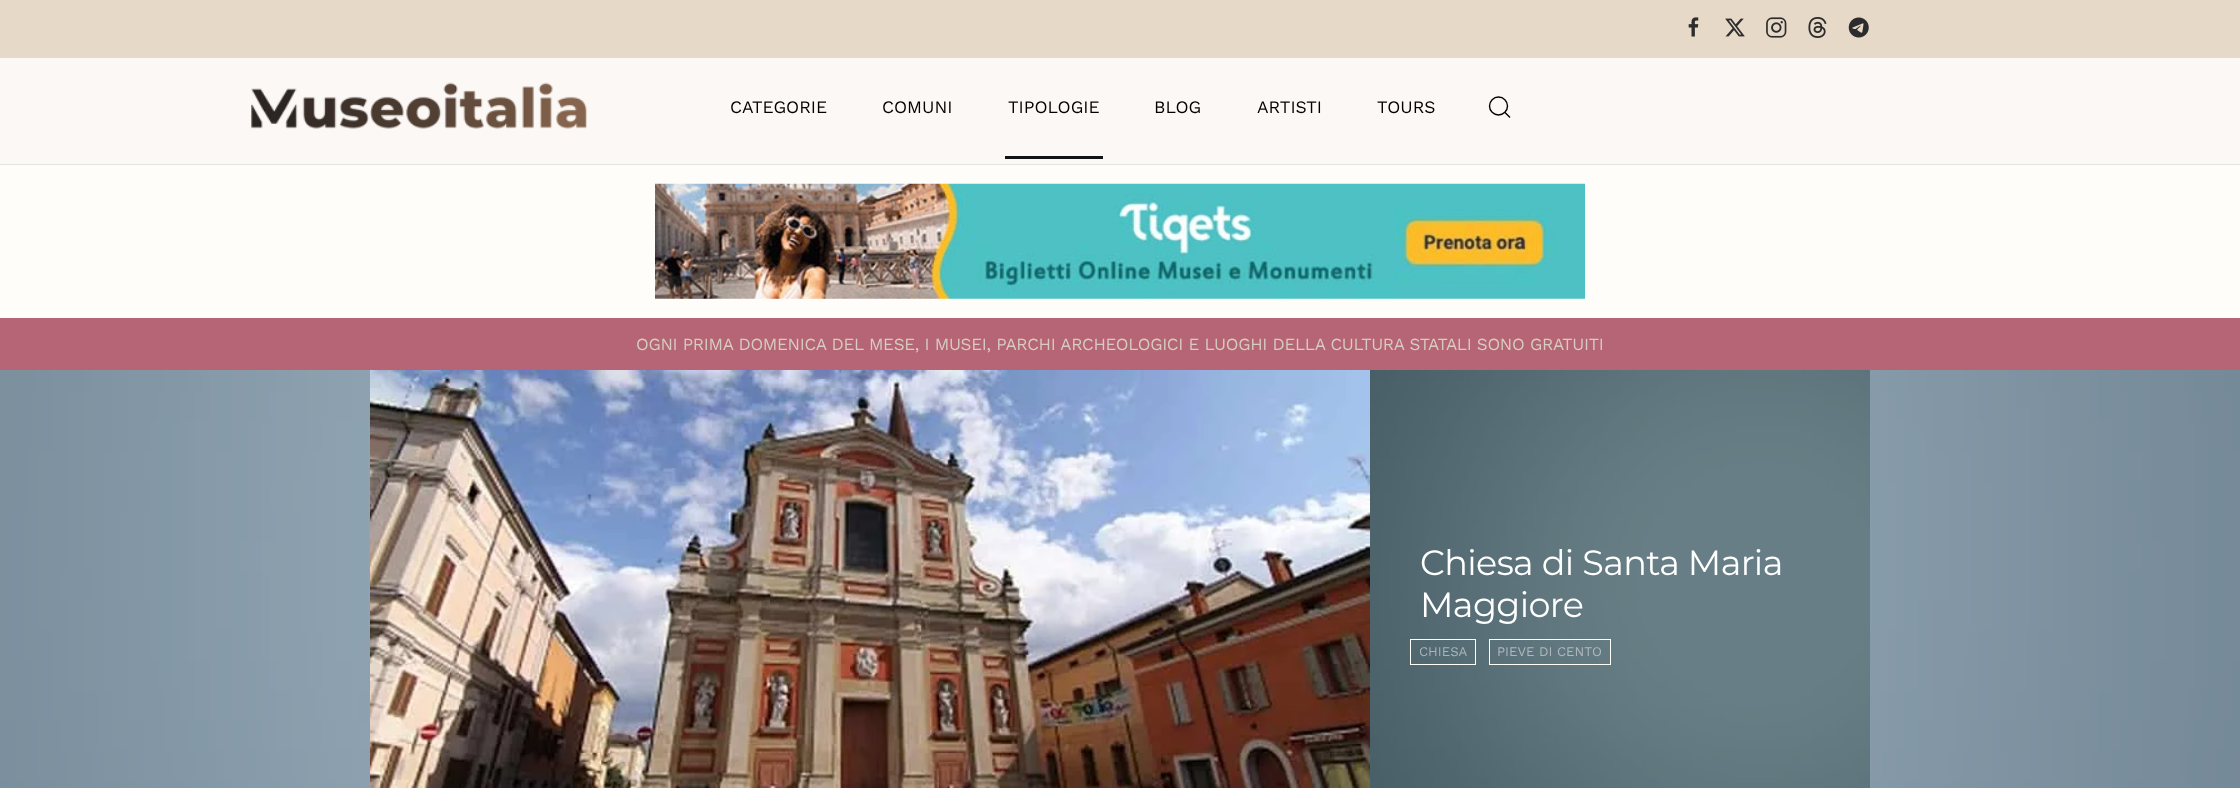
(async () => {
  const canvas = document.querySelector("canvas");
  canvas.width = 2240;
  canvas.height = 788;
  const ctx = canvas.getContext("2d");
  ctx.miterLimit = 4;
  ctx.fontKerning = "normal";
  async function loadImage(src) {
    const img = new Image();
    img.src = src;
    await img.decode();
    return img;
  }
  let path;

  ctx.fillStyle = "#fffdfa";
  ctx.fillRect(0, 0, 2240, 788);
  ctx.fillStyle = "#e7d9c8";
  ctx.fillRect(0, 0, 2240, 58);
  ctx.drawImage(await loadImage("img/1.png"), 1688, 17, 11, 20);
  ctx.drawImage(await loadImage("img/2.png"), 1725, 18, 20, 19);
  ctx.drawImage(await loadImage("img/3.png"), 1766, 17, 21, 21);
  ctx.drawImage(await loadImage("img/4.png"), 1808, 17, 19, 21);
  ctx.drawImage(await loadImage("img/5.png"), 1848, 17, 21, 21);
  ctx.fillStyle = "#fcf8f5";
  ctx.fillRect(0, 58, 2240, 106);
  ctx.fillStyle = "#e3e3e3";
  ctx.fillRect(0, 164, 2240, 1);
  ctx.drawImage(await loadImage("img/6.png"), 251, 82, 336, 47);
  ctx.fillStyle = "#121314";
  ctx.fillRect(1005, 156, 98, 3);
  ctx.beginPath();
  ctx.arc(1498.5, 106, 9, 0, Math.PI * 2);
  ctx.strokeStyle = "#000000";
  ctx.lineWidth = 1.4;
  ctx.stroke();
  path = new Path2D("M1505 112.5L1510 117.5Z");
  ctx.stroke(path);
  ctx.drawImage(await loadImage("img/7.png"), 655, 183, 930, 116);
  ctx.fillStyle = "#b56576";
  ctx.fillRect(0, 318, 2240, 52);
  ctx.drawImage(await loadImage("img/8.png"), 0, 370, 2240, 418);
  ctx.drawImage(await loadImage("img/9.png"), 370, 370, 1000, 418);
  ctx.drawImage(await loadImage("img/10.png"), 1370, 370, 500, 418);
  ctx.strokeStyle = "#fffffa";
  ctx.lineWidth = 1;
  ctx.strokeRect(1410.5, 639.5, 65, 25);
  ctx.strokeRect(1489.5, 639.5, 121, 25);
  ctx.font = "17.5px Work Sans";
  ctx.fillStyle = "#000000";
  for (const [text, x, y] of [
    ["CATEGORIE", 730, 113],
    ["COMUNI", 882, 113],
    ["TIPOLOGIE", 1008, 113],
    ["BLOG", 1154, 113],
    ["ARTISTI", 1257, 113],
    ["TOURS", 1377, 113],
  ]) {
    ctx.fillText(text, x, y);
  }
  ctx.letterSpacing = "-0.31px";
  ctx.font = "17px Work Sans";
  ctx.fillStyle = "#d6ccc2";
  ctx.fillText("OGNI PRIMA DOMENICA DEL MESE, I MUSEI, PARCHI ARCHEOLOGICI E LUOGHI DELLA CULTURA STATALI SONO GRATUITI", 636, 350);
  ctx.letterSpacing = "-0.6px";
  ctx.font = "35px Montserrat";
  ctx.fillStyle = "#ffffff";
  ctx.fillText("Chiesa di Santa Maria", 1420, 575);
  ctx.fillText("Maggiore", 1420, 617);
  ctx.letterSpacing = "0px";
  ctx.font = "13.25px Work Sans";
  ctx.fillStyle = "#a9b5b9";
  ctx.fillText("CHIESA", 1419, 656);
  ctx.fillStyle = "#afbabe";
  ctx.fillText("PIEVE DI CENTO", 1497, 656);
})();
